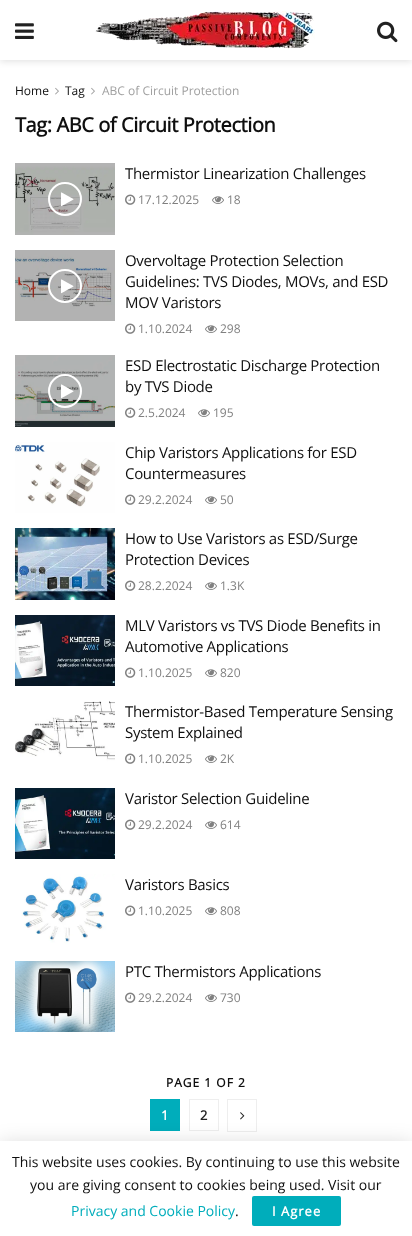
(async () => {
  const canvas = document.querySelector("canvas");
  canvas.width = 412;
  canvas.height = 1236;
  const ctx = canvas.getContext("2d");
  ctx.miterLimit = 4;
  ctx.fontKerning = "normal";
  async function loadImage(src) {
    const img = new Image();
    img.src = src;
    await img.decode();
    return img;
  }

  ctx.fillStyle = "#ffffff";
  ctx.fillRect(0, 0, 412, 1236);
  ctx.fillStyle = "rgba(0, 0, 0, 0.1)";
  ctx.filter = "blur(3px)";
  ctx.beginPath();
  ctx.rect(0, 2, 412, 60);
  ctx.fill();
  ctx.filter = "none";
  ctx.fillStyle = "#ffffff";
  ctx.fillRect(0, 0, 412, 60);
  ctx.drawImage(await loadImage("img/1.png"), 15, 23, 19, 16);
  ctx.drawImage(await loadImage("img/2.png"), 95, 11, 220, 38);
  ctx.drawImage(await loadImage("img/3.png"), 377, 21, 21, 22);
  ctx.drawImage(await loadImage("img/4.png"), 55, 87, 4, 8);
  ctx.drawImage(await loadImage("img/4.png"), 91, 87, 4, 8);
  ctx.drawImage(await loadImage("img/5.png"), 15, 163, 100, 72);
  ctx.beginPath();
  ctx.arc(65, 199, 16, 0, Math.PI * 2);
  ctx.strokeStyle = "#ffffff";
  ctx.lineWidth = 2;
  ctx.stroke();
  ctx.drawImage(await loadImage("img/6.png"), 61, 192, 13, 15);
  ctx.drawImage(await loadImage("img/7.png"), 125, 194, 11, 11);
  ctx.drawImage(await loadImage("img/8.png"), 212, 196, 12, 8);
  ctx.drawImage(await loadImage("img/9.png"), 15, 250, 100, 71);
  ctx.beginPath();
  ctx.arc(65, 286, 16, 0, Math.PI * 2);
  ctx.stroke();
  ctx.drawImage(await loadImage("img/10.png"), 61, 279, 13, 15);
  ctx.drawImage(await loadImage("img/7.png"), 125, 323, 11, 11);
  ctx.drawImage(await loadImage("img/8.png"), 205, 325, 12, 8);
  ctx.drawImage(await loadImage("img/11.png"), 15, 355, 100, 72);
  ctx.beginPath();
  ctx.arc(65, 391, 16, 0, Math.PI * 2);
  ctx.stroke();
  ctx.drawImage(await loadImage("img/12.png"), 61, 384, 13, 15);
  ctx.drawImage(await loadImage("img/7.png"), 125, 407, 11, 11);
  ctx.drawImage(await loadImage("img/8.png"), 198, 409, 12, 8);
  ctx.drawImage(await loadImage("img/13.png"), 15, 442, 100, 71);
  ctx.drawImage(await loadImage("img/7.png"), 125, 494, 11, 11);
  ctx.drawImage(await loadImage("img/8.png"), 205, 496, 12, 8);
  ctx.drawImage(await loadImage("img/14.png"), 15, 528, 100, 72);
  ctx.drawImage(await loadImage("img/7.png"), 125, 580, 11, 11);
  ctx.drawImage(await loadImage("img/8.png"), 205, 582, 12, 8);
  ctx.drawImage(await loadImage("img/15.png"), 15, 615, 100, 71);
  ctx.drawImage(await loadImage("img/7.png"), 125, 667, 11, 11);
  ctx.drawImage(await loadImage("img/8.png"), 205, 669, 12, 8);
  ctx.drawImage(await loadImage("img/16.png"), 15, 701, 100, 72);
  ctx.drawImage(await loadImage("img/7.png"), 125, 753, 11, 11);
  ctx.drawImage(await loadImage("img/8.png"), 205, 755, 12, 8);
  ctx.drawImage(await loadImage("img/17.png"), 15, 788, 100, 71);
  ctx.drawImage(await loadImage("img/7.png"), 125, 819, 11, 11);
  ctx.drawImage(await loadImage("img/8.png"), 205, 821, 12, 8);
  ctx.drawImage(await loadImage("img/18.png"), 15, 874, 100, 72);
  ctx.drawImage(await loadImage("img/7.png"), 125, 905, 11, 11);
  ctx.drawImage(await loadImage("img/8.png"), 205, 907, 12, 8);
  ctx.drawImage(await loadImage("img/19.png"), 15, 961, 100, 71);
  ctx.drawImage(await loadImage("img/7.png"), 125, 992, 11, 11);
  ctx.drawImage(await loadImage("img/8.png"), 205, 994, 12, 8);
  ctx.fillStyle = "#00adbb";
  ctx.fillRect(150, 1099, 30, 32);
  ctx.strokeStyle = "#eeeeee";
  ctx.lineWidth = 1;
  ctx.strokeRect(189.5, 1099.5, 29, 31);
  ctx.strokeRect(227.5, 1099.5, 29, 32);
  ctx.drawImage(await loadImage("img/20.png"), 240, 1112, 5, 8);
  ctx.fillStyle = "rgba(0, 0, 0, 0.15)";
  ctx.filter = "blur(10px)";
  ctx.beginPath();
  ctx.rect(0, 1143, 412, 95);
  ctx.fill();
  ctx.filter = "none";
  ctx.fillStyle = "rgba(0, 0, 0, 0.2)";
  ctx.filter = "blur(0.5px)";
  ctx.beginPath();
  ctx.rect(0, 1141, 412, 95);
  ctx.fill();
  ctx.filter = "none";
  ctx.fillStyle = "#ffffff";
  ctx.fillRect(0, 1141, 412, 95);
  ctx.fillStyle = "#00adbb";
  ctx.beginPath();
  ctx.roundRect(252, 1196, 89, 30, 2);
  ctx.fill();
  ctx.font = "12px Open Sans";
  ctx.fillStyle = "#0f0f0f";
  ctx.fillText("Home", 15, 95);
  ctx.fillText("Tag", 65, 95);
  ctx.fillStyle = "#a0a0a0";
  ctx.fillText("ABC of Circuit Protection", 102, 95);
  ctx.letterSpacing = "-0.4px";
  ctx.font = "bold 20px Open Sans";
  ctx.fillStyle = "#0f0f0f";
  ctx.fillText("Tag: ABC of Circuit Protection", 15, 132);
  ctx.letterSpacing = "-0.3px";
  ctx.font = "15px Open Sans";
  ctx.fillText("Thermistor Linearization Challenges", 125, 179);
  ctx.letterSpacing = "0px";
  ctx.font = "12px Open Sans";
  ctx.fillStyle = "#808080";
  ctx.fillText("17.12.2025", 138, 204);
  ctx.fillText("18", 227, 204);
  ctx.letterSpacing = "-0.3px";
  ctx.font = "15px Open Sans";
  ctx.fillStyle = "#0f0f0f";
  for (const [text, x, y] of [
    ["Overvoltage Protection Selection", 125, 266],
    ["Guidelines: TVS Diodes, MOVs, and ESD", 125, 287],
    ["MOV Varistors", 125, 308],
  ]) {
    ctx.fillText(text, x, y);
  }
  ctx.letterSpacing = "0px";
  ctx.font = "12px Open Sans";
  ctx.fillStyle = "#808080";
  ctx.fillText("1.10.2024", 138, 333);
  ctx.fillText("298", 220, 333);
  ctx.letterSpacing = "-0.3px";
  ctx.font = "15px Open Sans";
  ctx.fillStyle = "#0f0f0f";
  ctx.fillText("ESD Electrostatic Discharge Protection", 125, 371);
  ctx.fillText("by TVS Diode", 125, 392);
  ctx.letterSpacing = "0px";
  ctx.font = "12px Open Sans";
  ctx.fillStyle = "#808080";
  ctx.fillText("2.5.2024", 138, 417);
  ctx.fillText("195", 213, 417);
  ctx.letterSpacing = "-0.3px";
  ctx.font = "15px Open Sans";
  ctx.fillStyle = "#0f0f0f";
  ctx.fillText("Chip Varistors Applications for ESD", 125, 458);
  ctx.fillText("Countermeasures", 125, 479);
  ctx.letterSpacing = "0px";
  ctx.font = "12px Open Sans";
  ctx.fillStyle = "#808080";
  ctx.fillText("29.2.2024", 138, 504);
  ctx.fillText("50", 220, 504);
  ctx.letterSpacing = "-0.3px";
  ctx.font = "15px Open Sans";
  ctx.fillStyle = "#0f0f0f";
  ctx.fillText("How to Use Varistors as ESD/Surge", 125, 544);
  ctx.fillText("Protection Devices", 125, 565);
  ctx.letterSpacing = "0px";
  ctx.font = "12px Open Sans";
  ctx.fillStyle = "#808080";
  ctx.fillText("28.2.2024", 138, 590);
  ctx.fillText("1.3K", 220, 590);
  ctx.letterSpacing = "-0.3px";
  ctx.font = "15px Open Sans";
  ctx.fillStyle = "#0f0f0f";
  ctx.fillText("MLV Varistors vs TVS Diode Benefits in", 125, 631);
  ctx.fillText("Automotive Applications", 125, 652);
  ctx.letterSpacing = "0px";
  ctx.font = "12px Open Sans";
  ctx.fillStyle = "#808080";
  ctx.fillText("1.10.2025", 138, 677);
  ctx.fillText("820", 220, 677);
  ctx.letterSpacing = "-0.3px";
  ctx.font = "15px Open Sans";
  ctx.fillStyle = "#0f0f0f";
  ctx.fillText("Thermistor-Based Temperature Sensing", 125, 717);
  ctx.fillText("System Explained", 125, 738);
  ctx.letterSpacing = "0px";
  ctx.font = "12px Open Sans";
  ctx.fillStyle = "#808080";
  ctx.fillText("1.10.2025", 138, 763);
  ctx.fillText("2K", 220, 763);
  ctx.letterSpacing = "-0.3px";
  ctx.font = "15px Open Sans";
  ctx.fillStyle = "#0f0f0f";
  ctx.fillText("Varistor Selection Guideline", 125, 804);
  ctx.letterSpacing = "0px";
  ctx.font = "12px Open Sans";
  ctx.fillStyle = "#808080";
  ctx.fillText("29.2.2024", 138, 829);
  ctx.fillText("614", 220, 829);
  ctx.letterSpacing = "-0.3px";
  ctx.font = "15px Open Sans";
  ctx.fillStyle = "#0f0f0f";
  ctx.fillText("Varistors Basics", 125, 890);
  ctx.letterSpacing = "0px";
  ctx.font = "12px Open Sans";
  ctx.fillStyle = "#808080";
  ctx.fillText("1.10.2025", 138, 915);
  ctx.fillText("808", 220, 915);
  ctx.letterSpacing = "-0.3px";
  ctx.font = "15px Open Sans";
  ctx.fillStyle = "#0f0f0f";
  ctx.fillText("PTC Thermistors Applications", 125, 977);
  ctx.letterSpacing = "0px";
  ctx.font = "12px Open Sans";
  ctx.fillStyle = "#808080";
  ctx.fillText("29.2.2024", 138, 1002);
  ctx.fillText("730", 220, 1002);
  ctx.letterSpacing = "1px";
  ctx.font = "bold 12px Open Sans";
  ctx.fillStyle = "#0f0f0f";
  ctx.fillText("PAGE 1 OF 2", 166, 1087);
  ctx.letterSpacing = "0px";
  ctx.font = "bold 13px Open Sans";
  ctx.fillStyle = "#ffffff";
  ctx.fillText("1", 161, 1120);
  ctx.fillStyle = "#212121";
  ctx.fillText("2", 200, 1120);
  ctx.font = "14px Open Sans";
  ctx.fillStyle = "#0f0f0f";
  ctx.fillText("This website uses cookies. By continuing to use this website", 12, 1167);
  ctx.fillText("you are giving consent to cookies being used. Visit our", 30, 1190);
  ctx.fillStyle = "#00adbb";
  ctx.fillText("Privacy and Cookie Policy", 71, 1216);
  ctx.fillStyle = "#0f0f0f";
  ctx.fillText(".", 235, 1216);
  ctx.letterSpacing = "1px";
  ctx.font = "bold 13px Open Sans";
  ctx.fillStyle = "#ffffff";
  ctx.fillText("I Agree", 272, 1216);
})();
